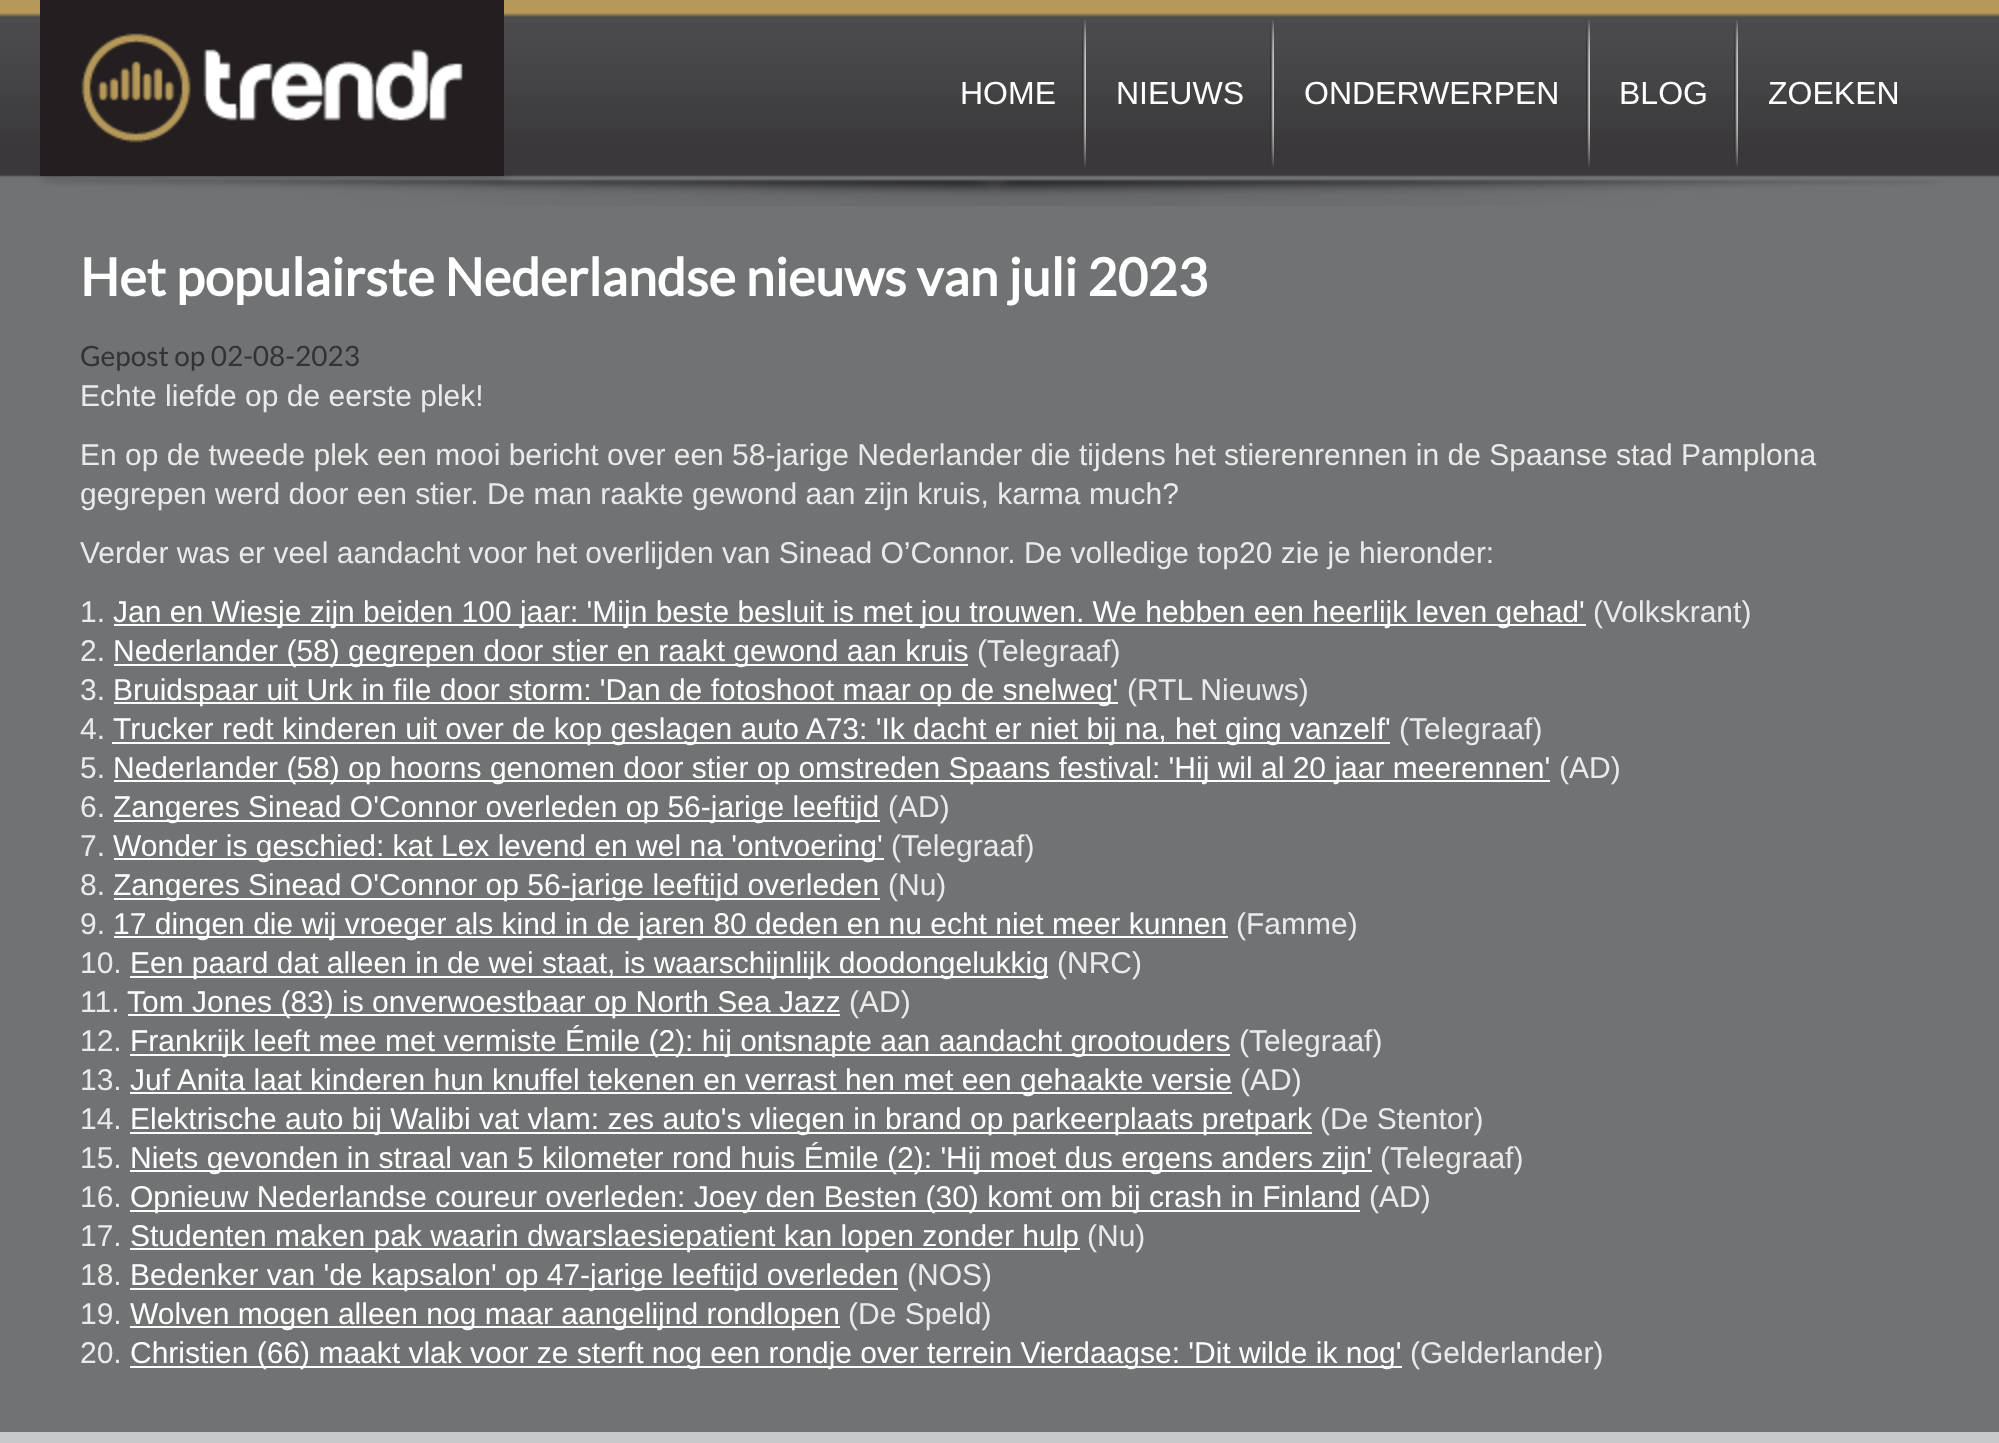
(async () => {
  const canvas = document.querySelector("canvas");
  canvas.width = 1999;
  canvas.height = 1443;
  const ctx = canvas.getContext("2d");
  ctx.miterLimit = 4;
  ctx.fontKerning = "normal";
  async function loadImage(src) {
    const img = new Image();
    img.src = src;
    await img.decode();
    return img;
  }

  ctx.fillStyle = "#717274";
  ctx.fillRect(0, 0, 1999, 1443);
  ctx.drawImage(await loadImage("img/1.png"), 0, 0, 1999, 206);
  ctx.drawImage(await loadImage("img/2.png"), 40, 0, 464, 176);
  ctx.drawImage(await loadImage("img/3.png"), 1082, 20, 4, 148);
  ctx.drawImage(await loadImage("img/3.png"), 1270, 20, 4, 148);
  ctx.drawImage(await loadImage("img/3.png"), 1586, 20, 4, 148);
  ctx.drawImage(await loadImage("img/3.png"), 1734, 20, 4, 148);
  for (const [x, y, w, h, color] of [
    [114, 624, 1472, 2, "#ffffff"],
    [114, 664, 854, 2, "#ffffff"],
    [114, 702, 1004, 2, "#ffffff"],
    [112, 742, 1278, 2, "#ffffff"],
    [114, 780, 1436, 2, "#ffffff"],
    [114, 820, 766, 2, "#ffffff"],
    [114, 858, 770, 2, "#ffffff"],
    [114, 898, 766, 2, "#ffffff"],
    [114, 936, 1114, 2, "#ffffff"],
    [130, 976, 918, 2, "#ffffff"],
    [128, 1014, 712, 2, "#ffffff"],
    [130, 1054, 1100, 2, "#ffffff"],
    [130, 1092, 1102, 2, "#ffffff"],
    [130, 1132, 1182, 2, "#ffffff"],
    [130, 1170, 1242, 2, "#ffffff"],
    [130, 1210, 1230, 2, "#ffffff"],
    [130, 1248, 950, 2, "#ffffff"],
    [130, 1288, 768, 2, "#ffffff"],
    [130, 1326, 710, 2, "#ffffff"],
    [130, 1366, 1272, 2, "#ffffff"],
    [0, 1432, 1999, 11, "#c8c9cb"],
  ]) {
    ctx.fillStyle = color;
    ctx.fillRect(x, y, w, h);
  }
  ctx.font = "32px Liberation Sans";
  ctx.fillStyle = "#ffffff";
  for (const [text, x, y] of [
    ["HOME", 960, 104],
    ["NIEUWS", 1116, 104],
    ["ONDERWERPEN", 1304, 104],
    ["BLOG", 1619, 104],
    ["ZOEKEN", 1768, 104],
  ]) {
    ctx.fillText(text, x, y);
  }
  ctx.font = "bold 52px Lato";
  ctx.fillText("Het populairste Nederlandse nieuws van juli 2023", 80, 296);
  ctx.font = "28px Lato";
  ctx.fillStyle = "#333333";
  ctx.fillText("Gepost op 02-08-2023", 80, 366);
  ctx.font = "30px Liberation Sans";
  ctx.fillStyle = "#eaeaea";
  for (const [text, x, y] of [
    ["Echte liefde op de eerste plek!", 80, 406],
    ["En op de tweede plek een mooi bericht over een 58-jarige Nederlander die tijdens het stierenrennen in de Spaanse stad Pamplona", 80, 465],
    ["gegrepen werd door een stier. De man raakte gewond aan zijn kruis, karma much?", 80, 504],
    ["Verder was er veel aandacht voor het overlijden van Sinead O’Connor. De volledige top20 zie je hieronder:", 80, 563],
    ["1.", 80, 622],
  ]) {
    ctx.fillText(text, x, y);
  }
  ctx.fillStyle = "#ffffff";
  ctx.fillText("Jan en Wiesje zijn beiden 100 jaar: 'Mijn beste besluit is met jou trouwen. We hebben een heerlijk leven gehad'", 113, 622);
  ctx.fillStyle = "#eaeaea";
  ctx.fillText("(Volkskrant)", 1593, 622);
  ctx.fillText("2.", 80, 661);
  ctx.fillStyle = "#ffffff";
  ctx.fillText("Nederlander (58) gegrepen door stier en raakt gewond aan kruis", 113, 661);
  ctx.fillStyle = "#eaeaea";
  ctx.fillText("(Telegraaf)", 977, 661);
  ctx.fillText("3.", 80, 700);
  ctx.fillStyle = "#ffffff";
  ctx.fillText("Bruidspaar uit Urk in file door storm: 'Dan de fotoshoot maar op de snelweg'", 113, 700);
  ctx.fillStyle = "#eaeaea";
  ctx.fillText("(RTL Nieuws)", 1127, 700);
  ctx.fillText("4.", 80, 739);
  ctx.fillStyle = "#ffffff";
  ctx.fillText("Trucker redt kinderen uit over de kop geslagen auto A73: 'Ik dacht er niet bij na, het ging vanzelf'", 113, 739);
  ctx.fillStyle = "#eaeaea";
  ctx.fillText("(Telegraaf)", 1399, 739);
  ctx.fillText("5.", 80, 778);
  ctx.fillStyle = "#ffffff";
  ctx.fillText("Nederlander (58) op hoorns genomen door stier op omstreden Spaans festival: 'Hij wil al 20 jaar meerennen'", 113, 778);
  ctx.fillStyle = "#eaeaea";
  ctx.fillText("(AD)", 1559, 778);
  ctx.fillText("6.", 80, 817);
  ctx.fillStyle = "#ffffff";
  ctx.fillText("Zangeres Sinead O'Connor overleden op 56-jarige leeftijd", 113, 817);
  ctx.fillStyle = "#eaeaea";
  ctx.fillText("(AD)", 888, 817);
  ctx.fillText("7.", 80, 856);
  ctx.fillStyle = "#ffffff";
  ctx.fillText("Wonder is geschied: kat Lex levend en wel na 'ontvoering'", 113, 856);
  ctx.fillStyle = "#eaeaea";
  ctx.fillText("(Telegraaf)", 891, 856);
  ctx.fillText("8.", 80, 895);
  ctx.fillStyle = "#ffffff";
  ctx.fillText("Zangeres Sinead O'Connor op 56-jarige leeftijd overleden", 113, 895);
  ctx.fillStyle = "#eaeaea";
  ctx.fillText("(Nu)", 888, 895);
  ctx.fillText("9.", 80, 934);
  ctx.fillStyle = "#ffffff";
  ctx.fillText("17 dingen die wij vroeger als kind in de jaren 80 deden en nu echt niet meer kunnen", 113, 934);
  ctx.fillStyle = "#eaeaea";
  ctx.fillText("(Famme)", 1236, 934);
  ctx.fillText("10.", 80, 973);
  ctx.fillStyle = "#ffffff";
  ctx.fillText("Een paard dat alleen in de wei staat, is waarschijnlijk doodongelukkig", 130, 973);
  ctx.fillStyle = "#eaeaea";
  ctx.fillText("(NRC)", 1057, 973);
  ctx.fillText("11.", 80, 1012);
  ctx.fillStyle = "#ffffff";
  ctx.fillText("Tom Jones (83) is onverwoestbaar op North Sea Jazz", 127, 1012);
  ctx.fillStyle = "#eaeaea";
  ctx.fillText("(AD)", 849, 1012);
  ctx.fillText("12.", 80, 1051);
  ctx.fillStyle = "#ffffff";
  ctx.fillText("Frankrijk leeft mee met vermiste Émile (2): hij ontsnapte aan aandacht grootouders", 130, 1051);
  ctx.fillStyle = "#eaeaea";
  ctx.fillText("(Telegraaf)", 1239, 1051);
  ctx.fillText("13.", 80, 1090);
  ctx.fillStyle = "#ffffff";
  ctx.fillText("Juf Anita laat kinderen hun knuffel tekenen en verrast hen met een gehaakte versie", 130, 1090);
  ctx.fillStyle = "#eaeaea";
  ctx.fillText("(AD)", 1240, 1090);
  ctx.fillText("14.", 80, 1129);
  ctx.fillStyle = "#ffffff";
  ctx.fillText("Elektrische auto bij Walibi vat vlam: zes auto's vliegen in brand op parkeerplaats pretpark", 130, 1129);
  ctx.fillStyle = "#eaeaea";
  ctx.fillText("(De Stentor)", 1320, 1129);
  ctx.fillText("15.", 80, 1168);
  ctx.fillStyle = "#ffffff";
  ctx.fillText("Niets gevonden in straal van 5 kilometer rond huis Émile (2): 'Hij moet dus ergens anders zijn'", 130, 1168);
  ctx.fillStyle = "#eaeaea";
  ctx.fillText("(Telegraaf)", 1380, 1168);
  ctx.fillText("16.", 80, 1207);
  ctx.fillStyle = "#ffffff";
  ctx.fillText("Opnieuw Nederlandse coureur overleden: Joey den Besten (30) komt om bij crash in Finland", 130, 1207);
  ctx.fillStyle = "#eaeaea";
  ctx.fillText("(AD)", 1369, 1207);
  ctx.fillText("17.", 80, 1246);
  ctx.fillStyle = "#ffffff";
  ctx.fillText("Studenten maken pak waarin dwarslaesiepatient kan lopen zonder hulp", 130, 1246);
  ctx.fillStyle = "#eaeaea";
  ctx.fillText("(Nu)", 1087, 1246);
  ctx.fillText("18.", 80, 1285);
  ctx.fillStyle = "#ffffff";
  ctx.fillText("Bedenker van 'de kapsalon' op 47-jarige leeftijd overleden", 130, 1285);
  ctx.fillStyle = "#eaeaea";
  ctx.fillText("(NOS)", 907, 1285);
  ctx.fillText("19.", 80, 1324);
  ctx.fillStyle = "#ffffff";
  ctx.fillText("Wolven mogen alleen nog maar aangelijnd rondlopen", 130, 1324);
  ctx.fillStyle = "#eaeaea";
  ctx.fillText("(De Speld)", 848, 1324);
  ctx.fillText("20.", 80, 1363);
  ctx.fillStyle = "#ffffff";
  ctx.fillText("Christien (66) maakt vlak voor ze sterft nog een rondje over terrein Vierdaagse: 'Dit wilde ik nog'", 130, 1363);
  ctx.fillStyle = "#eaeaea";
  ctx.fillText("(Gelderlander)", 1410, 1363);
})();
